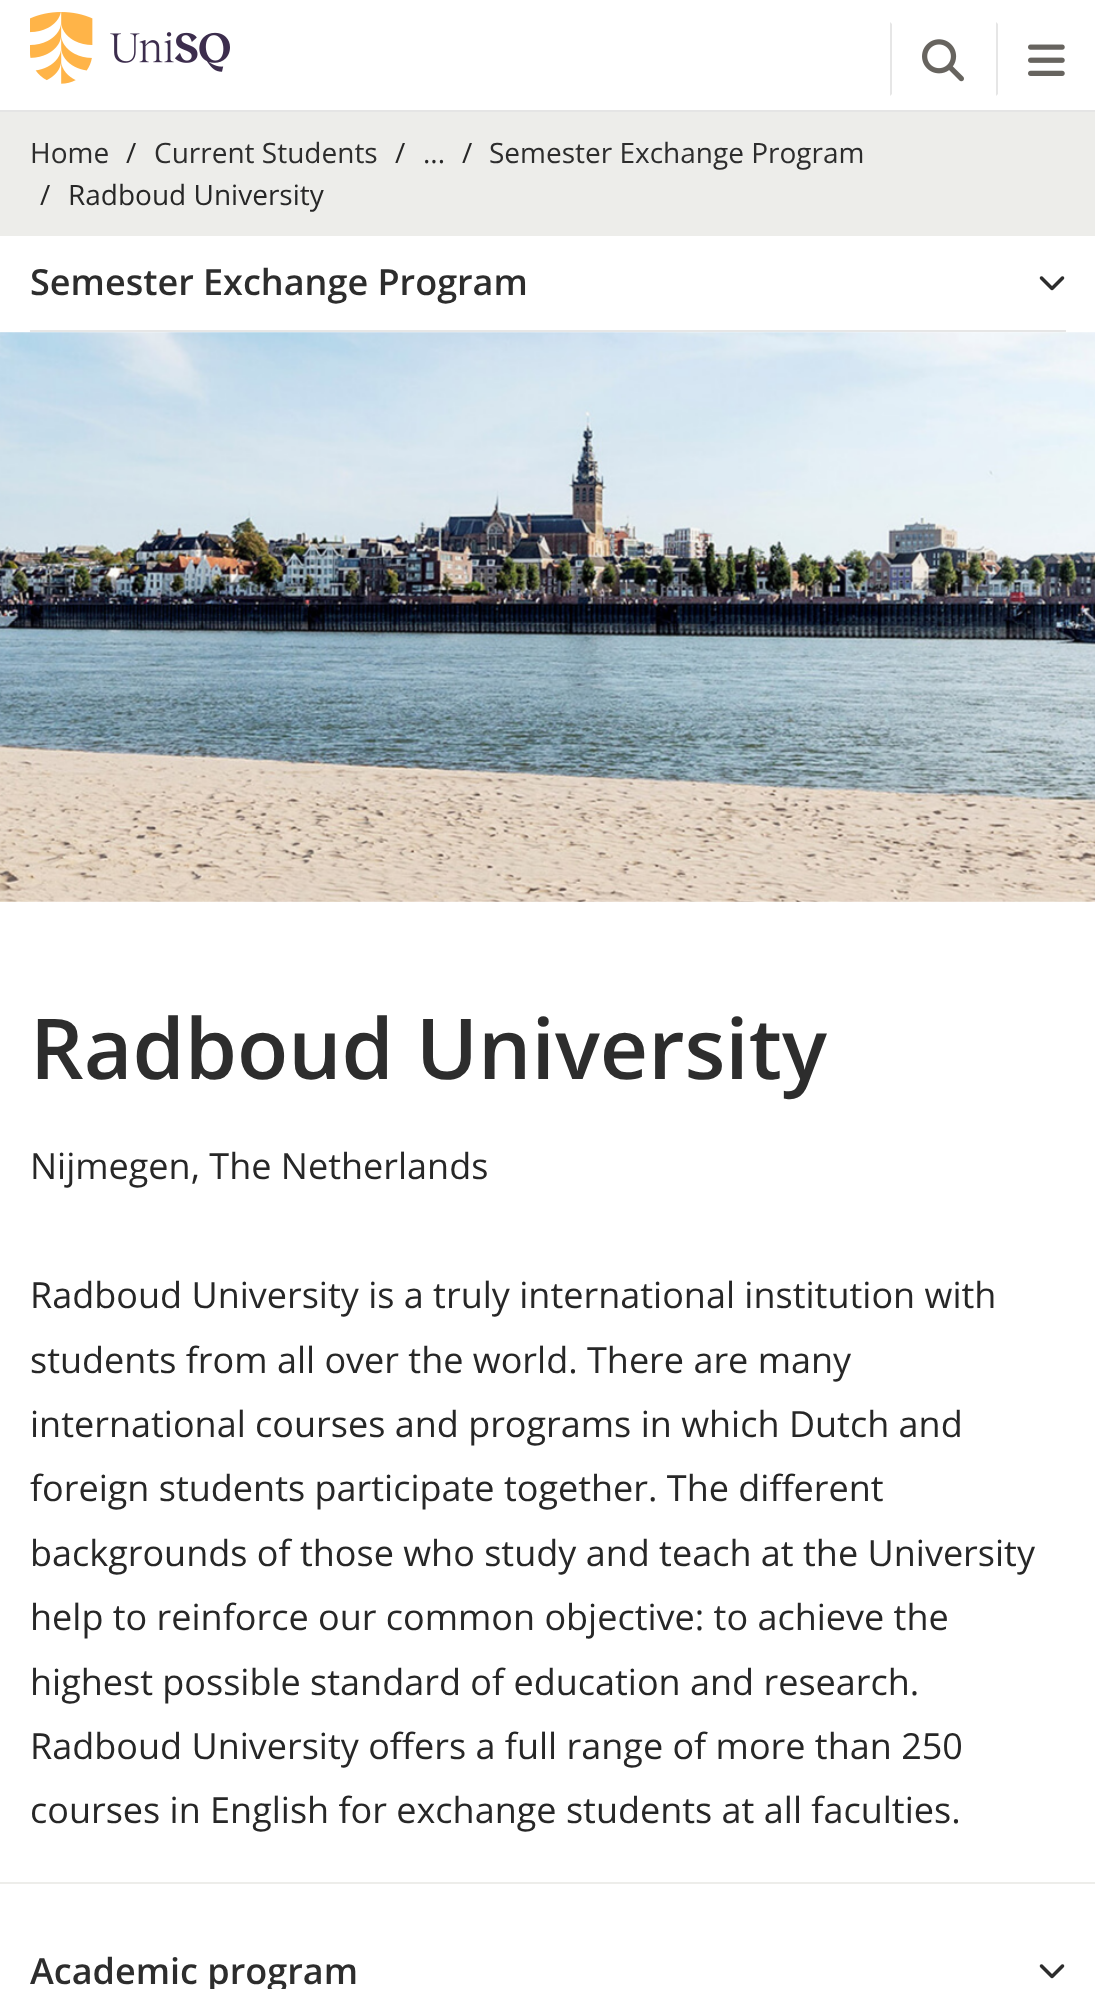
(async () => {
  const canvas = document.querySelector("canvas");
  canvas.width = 1095;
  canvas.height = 1989;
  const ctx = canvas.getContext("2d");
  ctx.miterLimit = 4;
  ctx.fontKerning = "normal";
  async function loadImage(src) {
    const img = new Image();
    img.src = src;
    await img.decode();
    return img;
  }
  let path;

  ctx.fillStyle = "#ffffff";
  ctx.fillRect(0, 0, 1095, 1989);
  ctx.fillStyle = "#e5e5e5";
  ctx.fillRect(0, 110, 1095, 2);
  ctx.drawImage(await loadImage("img/1.png"), 30, 12, 200, 72);
  ctx.fillStyle = "#e6e6e6";
  path = new Path2D("M890 96V22L892 24V94Z");
  ctx.fill(path);
  ctx.drawImage(await loadImage("img/2.png"), 922, 39, 42, 43);
  path = new Path2D("M996 96V22L998 24V94Z");
  ctx.fill(path);
  ctx.drawImage(await loadImage("img/3.png"), 1028, 44, 37, 32);
  ctx.fillStyle = "#ededea";
  ctx.fillRect(0, 112, 1095, 124);
  ctx.fillStyle = "#e6e6e6";
  ctx.fillRect(30, 330, 1036, 2);
  ctx.drawImage(await loadImage("img/4.png"), 1039, 276, 26, 15);
  ctx.drawImage(await loadImage("img/5.png"), 0, 332, 1095, 570);
  ctx.fillStyle = "#ededea";
  ctx.fillRect(0, 1882, 1095, 2);
  ctx.drawImage(await loadImage("img/4.png"), 1039, 1964, 26, 15);
  ctx.font = "28px Open Sans";
  ctx.fillStyle = "#2d2d2d";
  ctx.fillText("Home", 30, 163);
  ctx.fillStyle = "#272727";
  ctx.fillText("/", 126, 163);
  ctx.fillStyle = "#2d2d2d";
  ctx.fillText("Current Students", 154, 163);
  ctx.fillStyle = "#272727";
  for (const [text, x, y] of [
    ["/", 395, 163],
    ["...", 423, 163],
    ["/", 462, 163],
  ]) {
    ctx.fillText(text, x, y);
  }
  ctx.fillStyle = "#2d2d2d";
  ctx.fillText("Semester Exchange Program", 489, 163);
  ctx.fillStyle = "#272727";
  ctx.fillText("/", 40, 205);
  ctx.fillText("Radboud University", 68, 205);
  ctx.font = "600 36px Open Sans";
  ctx.fillStyle = "#2d2d2d";
  ctx.fillText("Semester Exchange Program", 30, 295);
  ctx.font = "600 84px Open Sans";
  ctx.fillText("Radboud University", 30, 1079);
  ctx.font = "36px Open Sans";
  ctx.fillStyle = "#272727";
  for (const [text, x, y] of [
    ["Nijmegen, The Netherlands", 30, 1179],
    ["Radboud University is a truly international institution with", 30, 1308],
    ["students from all over the world. There are many", 30, 1373],
    ["international courses and programs in which Dutch and", 30, 1437],
    ["foreign students participate together. The different", 30, 1501],
    ["backgrounds of those who study and teach at the University", 30, 1566],
    ["help to reinforce our common objective: to achieve the", 30, 1630],
    ["highest possible standard of education and research.", 30, 1695],
    ["Radboud University offers a full range of more than 250", 30, 1759],
    ["courses in English for exchange students at all faculties.", 30, 1823],
  ]) {
    ctx.fillText(text, x, y);
  }
  ctx.font = "600 36px Open Sans";
  ctx.fillStyle = "#2d2d2d";
  ctx.fillText("Academic program", 30, 1984);
})();
